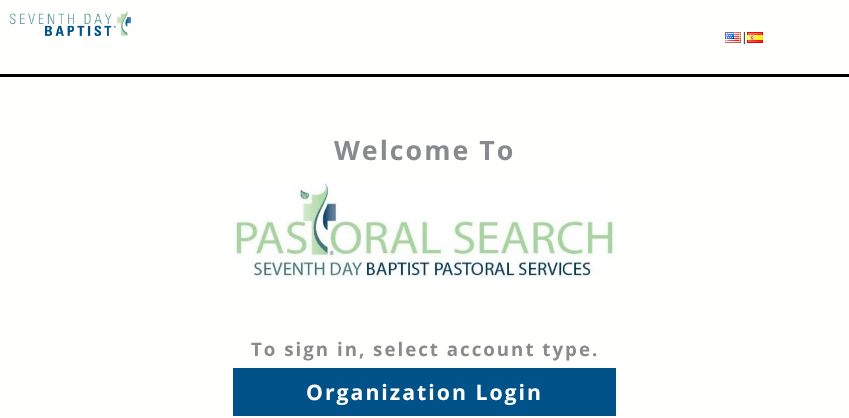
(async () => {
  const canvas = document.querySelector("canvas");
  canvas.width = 849;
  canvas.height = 418;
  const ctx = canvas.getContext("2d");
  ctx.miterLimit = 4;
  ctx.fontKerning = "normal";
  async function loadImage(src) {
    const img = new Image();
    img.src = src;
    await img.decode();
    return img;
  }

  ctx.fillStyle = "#fffffd";
  ctx.fillRect(0, 0, 849, 418);
  ctx.fillStyle = "#000000";
  ctx.fillRect(0, 74, 849, 3);
  ctx.drawImage(await loadImage("img/1.png"), 10, 10, 121, 26);
  ctx.drawImage(await loadImage("img/2.png"), 725, 32, 16, 11);
  ctx.drawImage(await loadImage("img/3.png"), 747, 32, 16, 11);
  ctx.drawImage(await loadImage("img/4.png"), 233, 183, 383, 97);
  ctx.fillStyle = "#005288";
  ctx.fillRect(233, 368, 383, 48);
  ctx.font = "12px Open Sans";
  ctx.fillStyle = "#000000";
  ctx.fillText("|", 741, 41);
  ctx.letterSpacing = "2px";
  ctx.font = "bold 26.75px Open Sans";
  ctx.fillStyle = "#898a8d";
  ctx.fillText("Welcome To", 334, 160);
  ctx.font = "bold 18.7px Open Sans";
  ctx.fillText("To sign in, select account type.", 251, 356);
  ctx.font = "bold 21.25px Open Sans";
  ctx.fillStyle = "#fffffd";
  ctx.fillText("Organization Login", 306, 400);
})();
